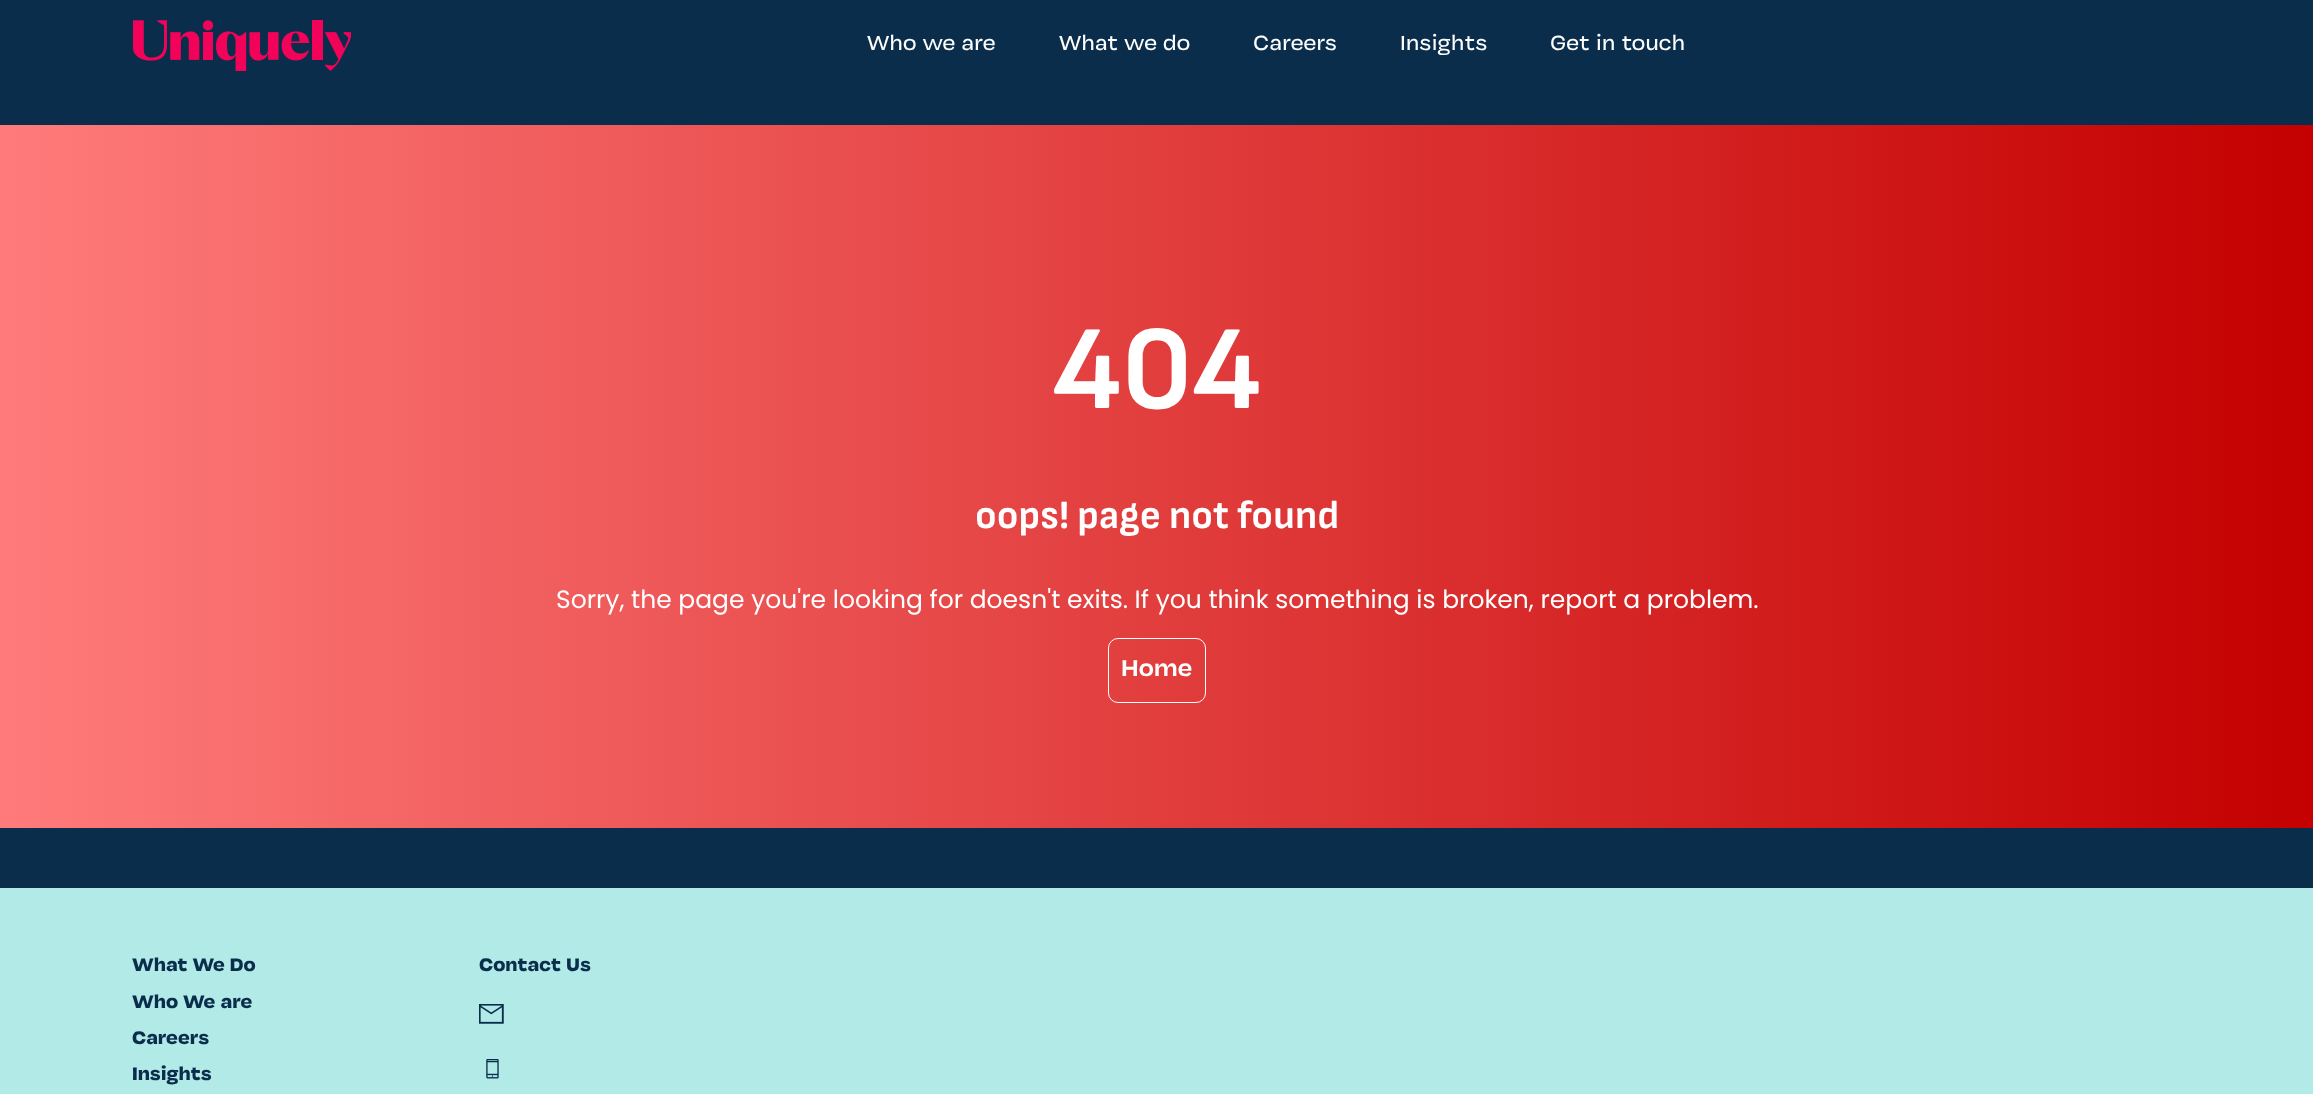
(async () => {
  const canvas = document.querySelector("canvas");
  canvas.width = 2313;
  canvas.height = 1094;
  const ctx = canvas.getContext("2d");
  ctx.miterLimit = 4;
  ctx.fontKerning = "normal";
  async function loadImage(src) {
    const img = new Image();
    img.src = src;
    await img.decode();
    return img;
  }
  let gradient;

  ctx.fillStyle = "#0a2d4b";
  ctx.fillRect(0, 0, 2313, 1094);
  ctx.drawImage(await loadImage("img/1.png"), 133, 20, 218, 51);
  gradient = ctx.createLinearGradient(0, 476, 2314, 476);
  gradient.addColorStop(0, "#ff7b7b");
  gradient.addColorStop(1, "#c40000");
  ctx.fillStyle = gradient;
  ctx.fillRect(0, 125, 2313, 703);
  ctx.beginPath();
  ctx.roundRect(1108.5, 638.5, 97, 64, 9.5);
  ctx.strokeStyle = "#ffffff";
  ctx.stroke();
  ctx.fillStyle = "#b2eae8";
  ctx.fillRect(0, 888, 2313, 206);
  ctx.drawImage(await loadImage("img/2.png"), 479, 1004, 25, 20);
  ctx.drawImage(await loadImage("img/3.png"), 486, 1059, 13, 20);
  ctx.font = "22.5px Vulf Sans";
  ctx.fillStyle = "#ffffff";
  for (const [text, x, y] of [
    ["Who we are", 867, 50],
    ["What we do", 1059, 50],
    ["Careers", 1253, 50],
    ["Insights", 1400, 50],
    ["Get in touch", 1550, 50],
  ]) {
    ctx.fillText(text, x, y);
  }
  ctx.font = "bold 120px Sofia Sans";
  ctx.fillText("404", 1053, 408);
  ctx.font = "bold 40px Sofia Sans";
  ctx.fillText("oops! page not found", 975, 528);
  ctx.font = "25px Poppins";
  ctx.fillText("Sorry, the page you're looking for doesn't exits. If you think something is broken, report a problem.", 556, 608);
  ctx.font = "500 25px Vulf Sans";
  ctx.fillText("Home", 1121, 676);
  ctx.font = "bold 20px Vulf Sans";
  ctx.fillStyle = "#0a2d4b";
  for (const [text, x, y] of [
    ["What We Do", 132, 971],
    ["Who We are", 132, 1008],
    ["Careers", 132, 1044],
    ["Insights", 132, 1080],
    ["Contact Us", 479, 971],
  ]) {
    ctx.fillText(text, x, y);
  }
})();
